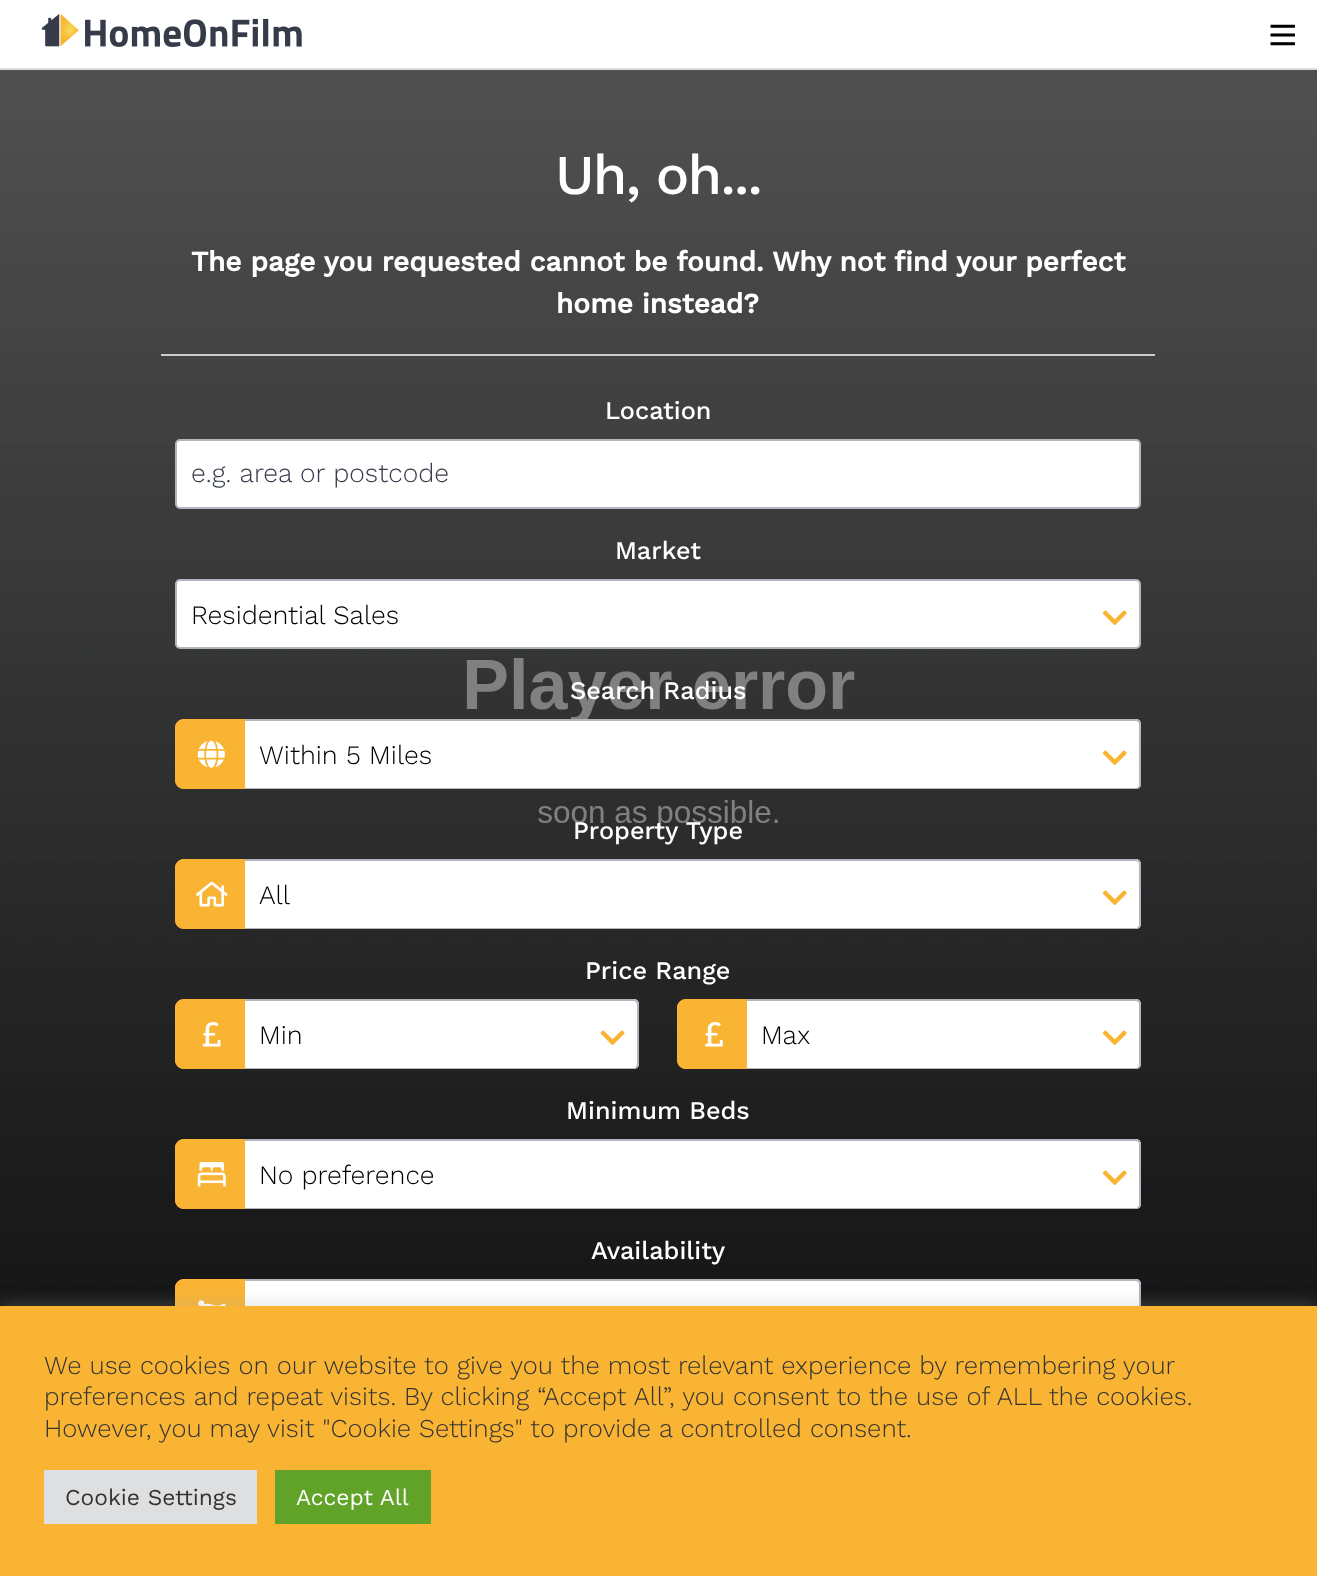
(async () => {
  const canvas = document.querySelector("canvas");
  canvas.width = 1317;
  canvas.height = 1576;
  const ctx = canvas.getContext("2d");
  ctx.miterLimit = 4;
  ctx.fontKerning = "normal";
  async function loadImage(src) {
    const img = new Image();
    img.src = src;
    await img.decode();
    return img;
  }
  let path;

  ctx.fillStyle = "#767676";
  ctx.fillRect(0, 0, 1317, 1576);
  ctx.fillStyle = "#ffffff";
  ctx.fillRect(0, 0, 1317, 68);
  ctx.fillStyle = "#dcdde1";
  ctx.fillRect(0, 68, 1317, 2);
  ctx.drawImage(await loadImage("img/1.png"), 41, 14, 261, 33);
  ctx.drawImage(await loadImage("img/2.png"), 1270, 24, 25, 22);
  ctx.drawImage(await loadImage("img/3.png"), 0, 70, 1317, 1236);
  ctx.fillStyle = "#cccccc";
  ctx.fillRect(161, 354, 994, 2);
  ctx.fillStyle = "#ffffff";
  ctx.beginPath();
  ctx.roundRect(176, 440, 964, 68, 4);
  ctx.fill();
  ctx.strokeStyle = "#b3b5be";
  ctx.lineWidth = 2;
  ctx.stroke();
  ctx.beginPath();
  ctx.roundRect(176, 580, 964, 68, 4);
  ctx.fill();
  ctx.stroke();
  ctx.drawImage(await loadImage("img/4.png"), 1102, 610, 25, 15);
  ctx.fillStyle = "#f9b433";
  ctx.beginPath();
  ctx.roundRect(175, 719, 70, 70, [9, 0, 0, 9]);
  ctx.fill();
  path = new Path2D("M184 719H245V789H184C179 789 175 785 175 780V728C175 723 179 719 184 719ZM184 721H245V788H184C180 788 177 784 177 780V728C177 724 180 721 184 721Z");
  ctx.fill(path, "evenodd");
  ctx.drawImage(await loadImage("img/5.png"), 197, 740, 28, 28);
  ctx.fillStyle = "#ffffff";
  ctx.beginPath();
  ctx.roundRect(245, 719, 896, 70, [0, 5, 5, 0]);
  ctx.fill();
  ctx.fillStyle = "#b3b5be";
  path = new Path2D("M245 719H1136C1139 719 1141 722 1141 724V784C1141 787 1139 789 1136 789H245ZM245 721H1136C1138 721 1139 723 1139 724V784C1139 786 1138 788 1136 788H245Z");
  ctx.fill(path, "evenodd");
  ctx.drawImage(await loadImage("img/4.png"), 1102, 750, 25, 15);
  ctx.fillStyle = "#f9b433";
  ctx.beginPath();
  ctx.roundRect(175, 859, 70, 70, [9, 0, 0, 9]);
  ctx.fill();
  path = new Path2D("M184 859H245V929H184C179 929 175 925 175 920V868C175 863 179 859 184 859ZM184 861H245V928H184C180 928 177 924 177 920V868C177 864 180 861 184 861Z");
  ctx.fill(path, "evenodd");
  ctx.drawImage(await loadImage("img/6.png"), 196, 882, 32, 25);
  ctx.fillStyle = "#ffffff";
  ctx.beginPath();
  ctx.roundRect(245, 859, 896, 70, [0, 5, 5, 0]);
  ctx.fill();
  ctx.fillStyle = "#b3b5be";
  path = new Path2D("M245 859H1136C1139 859 1141 862 1141 864V924C1141 927 1139 929 1136 929H245ZM245 861H1136C1138 861 1139 863 1139 864V924C1139 926 1138 928 1136 928H245Z");
  ctx.fill(path, "evenodd");
  ctx.drawImage(await loadImage("img/4.png"), 1102, 890, 25, 15);
  ctx.fillStyle = "#f9b433";
  ctx.beginPath();
  ctx.roundRect(175, 999, 70, 70, [9, 0, 0, 9]);
  ctx.fill();
  path = new Path2D("M184 999H245V1069H184C179 1069 175 1065 175 1060V1008C175 1003 179 999 184 999ZM184 1001H245V1068H184C180 1068 177 1064 177 1060V1008C177 1004 180 1001 184 1001Z");
  ctx.fill(path, "evenodd");
  ctx.drawImage(await loadImage("img/7.png"), 203, 1022, 18, 25);
  ctx.fillStyle = "#ffffff";
  ctx.beginPath();
  ctx.roundRect(245, 999, 394, 70, [0, 5, 5, 0]);
  ctx.fill();
  ctx.fillStyle = "#b3b5be";
  path = new Path2D("M245 999H634C636 999 639 1002 639 1004V1064C639 1067 636 1069 634 1069H245ZM245 1001H634C635 1001 637 1003 637 1004V1064C637 1066 635 1068 634 1068H245Z");
  ctx.fill(path, "evenodd");
  ctx.drawImage(await loadImage("img/8.png"), 600, 1030, 25, 15);
  ctx.fillStyle = "#f9b433";
  ctx.beginPath();
  ctx.roundRect(677, 999, 70, 70, [9, 0, 0, 9]);
  ctx.fill();
  path = new Path2D("M686 999H747V1069H686C681 1069 677 1065 677 1060V1008C677 1003 681 999 686 999ZM686 1001H747V1068H686C682 1068 679 1064 679 1060V1008C679 1004 682 1001 686 1001Z");
  ctx.fill(path, "evenodd");
  ctx.drawImage(await loadImage("img/9.png"), 705, 1022, 18, 25);
  ctx.fillStyle = "#ffffff";
  ctx.beginPath();
  ctx.roundRect(747, 999, 394, 70, [0, 5, 5, 0]);
  ctx.fill();
  ctx.fillStyle = "#b3b5be";
  path = new Path2D("M747 999H1136C1139 999 1141 1002 1141 1004V1064C1141 1067 1139 1069 1136 1069H747ZM747 1001H1136C1138 1001 1139 1003 1139 1004V1064C1139 1066 1138 1068 1136 1068H747Z");
  ctx.fill(path, "evenodd");
  ctx.drawImage(await loadImage("img/4.png"), 1102, 1030, 25, 15);
  ctx.fillStyle = "#f9b433";
  ctx.beginPath();
  ctx.roundRect(175, 1139, 70, 70, [9, 0, 0, 9]);
  ctx.fill();
  path = new Path2D("M184 1139H245V1209H184C179 1209 175 1205 175 1200V1148C175 1143 179 1139 184 1139ZM184 1141H245V1208H184C180 1208 177 1204 177 1200V1148C177 1144 180 1141 184 1141Z");
  ctx.fill(path, "evenodd");
  ctx.drawImage(await loadImage("img/10.png"), 197, 1162, 29, 25);
  ctx.fillStyle = "#ffffff";
  ctx.beginPath();
  ctx.roundRect(245, 1139, 896, 70, [0, 5, 5, 0]);
  ctx.fill();
  ctx.fillStyle = "#b3b5be";
  path = new Path2D("M245 1139H1136C1139 1139 1141 1142 1141 1144V1204C1141 1207 1139 1209 1136 1209H245ZM245 1141H1136C1138 1141 1139 1143 1139 1144V1204C1139 1206 1138 1208 1136 1208H245Z");
  ctx.fill(path, "evenodd");
  ctx.drawImage(await loadImage("img/4.png"), 1102, 1170, 25, 15);
  ctx.fillStyle = "#f9b433";
  ctx.beginPath();
  ctx.roundRect(175, 1279, 70, 70, [9, 0, 0, 9]);
  ctx.fill();
  path = new Path2D("M184 1279H245V1349H184C179 1349 175 1345 175 1340V1288C175 1283 179 1279 184 1279ZM184 1281H245V1348H184C180 1348 177 1344 177 1340V1288C177 1284 180 1281 184 1281Z");
  ctx.fill(path, "evenodd");
  ctx.drawImage(await loadImage("img/11.png"), 198, 1300, 28, 6);
  ctx.fillStyle = "#ffffff";
  ctx.beginPath();
  ctx.roundRect(245, 1279, 896, 70, [0, 5, 5, 0]);
  ctx.fill();
  ctx.fillStyle = "#b3b5be";
  path = new Path2D("M245 1279H1136C1139 1279 1141 1282 1141 1284V1344C1141 1347 1139 1349 1136 1349H245ZM245 1281H1136C1138 1281 1139 1283 1139 1284V1344C1139 1346 1138 1348 1136 1348H245Z");
  ctx.fill(path, "evenodd");
  ctx.fillStyle = "rgba(172, 171, 171, 0.3)";
  ctx.filter = "blur(9px)";
  ctx.beginPath();
  ctx.rect(0, 1304, 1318, 271);
  ctx.fill();
  ctx.filter = "none";
  for (const [x, y, w, h, color] of [
    [0, 1306, 1317, 270, "#f9b433"],
    [44, 1470, 213, 54, "#dedfe0"],
    [275, 1470, 156, 54, "#61a229"],
  ]) {
    ctx.fillStyle = color;
    ctx.fillRect(x, y, w, h);
  }
  ctx.letterSpacing = "-1.75px";
  ctx.font = "500 56px Work Sans";
  ctx.fillStyle = "#ffffff";
  ctx.fillText("Uh, oh...", 555, 194);
  ctx.letterSpacing = "0px";
  ctx.font = "bold 28px Work Sans";
  ctx.fillText("The page you requested cannot be found. Why not find your perfect", 191, 271);
  ctx.fillText("home instead?", 556, 313);
  ctx.font = "500 25.25px Work Sans";
  ctx.fillText("Location", 605, 419);
  ctx.font = "300 26.5px Work Sans";
  ctx.fillStyle = "#353b48";
  ctx.fillText("e.g. area or postcode", 191, 482);
  ctx.font = "500 25.25px Work Sans";
  ctx.fillStyle = "#ffffff";
  ctx.fillText("Market", 615, 559);
  ctx.font = "300 26.5px Work Sans";
  ctx.fillStyle = "#000000";
  ctx.fillText("Residential Sales", 191, 624);
  ctx.font = "500 25.25px Work Sans";
  ctx.fillStyle = "#ffffff";
  ctx.fillText("Search Radius", 570, 699);
  ctx.font = "300 26.5px Work Sans";
  ctx.fillStyle = "#000000";
  ctx.fillText("Within 5 Miles", 259, 764);
  ctx.font = "500 25.25px Work Sans";
  ctx.fillStyle = "#ffffff";
  ctx.fillText("Property Type", 573, 839);
  ctx.font = "300 26.5px Work Sans";
  ctx.fillStyle = "#000000";
  ctx.fillText("All", 259, 904);
  ctx.font = "500 25.25px Work Sans";
  ctx.fillStyle = "#ffffff";
  ctx.fillText("Price Range", 585, 979);
  ctx.font = "300 26.5px Work Sans";
  ctx.fillStyle = "#000000";
  ctx.fillText("Min", 259, 1044);
  ctx.fillText("Max", 761, 1044);
  ctx.font = "500 25.25px Work Sans";
  ctx.fillStyle = "#ffffff";
  ctx.fillText("Minimum Beds", 566, 1119);
  ctx.font = "300 26.5px Work Sans";
  ctx.fillStyle = "#000000";
  ctx.fillText("No preference", 259, 1184);
  ctx.font = "500 25.25px Work Sans";
  ctx.fillStyle = "#ffffff";
  ctx.fillText("Availability", 591, 1259);
  ctx.font = "300 25.65px Work Sans";
  ctx.fillStyle = "#333333";
  for (const [text, x, y] of [
    ["We use cookies on our website to give you the most relevant experience by remembering your", 44, 1374],
    ["preferences and repeat visits. By clicking “Accept All”, you consent to the use of ALL the cookies.", 44, 1405],
    ["However, you may visit \"Cookie Settings\" to provide a controlled consent.", 44, 1437],
  ]) {
    ctx.fillText(text, x, y);
  }
  ctx.font = "22.75px Work Sans";
  ctx.fillText("Cookie Settings", 65, 1505);
  ctx.fillStyle = "#ffffff";
  ctx.fillText("Accept All", 296, 1505);
})();
